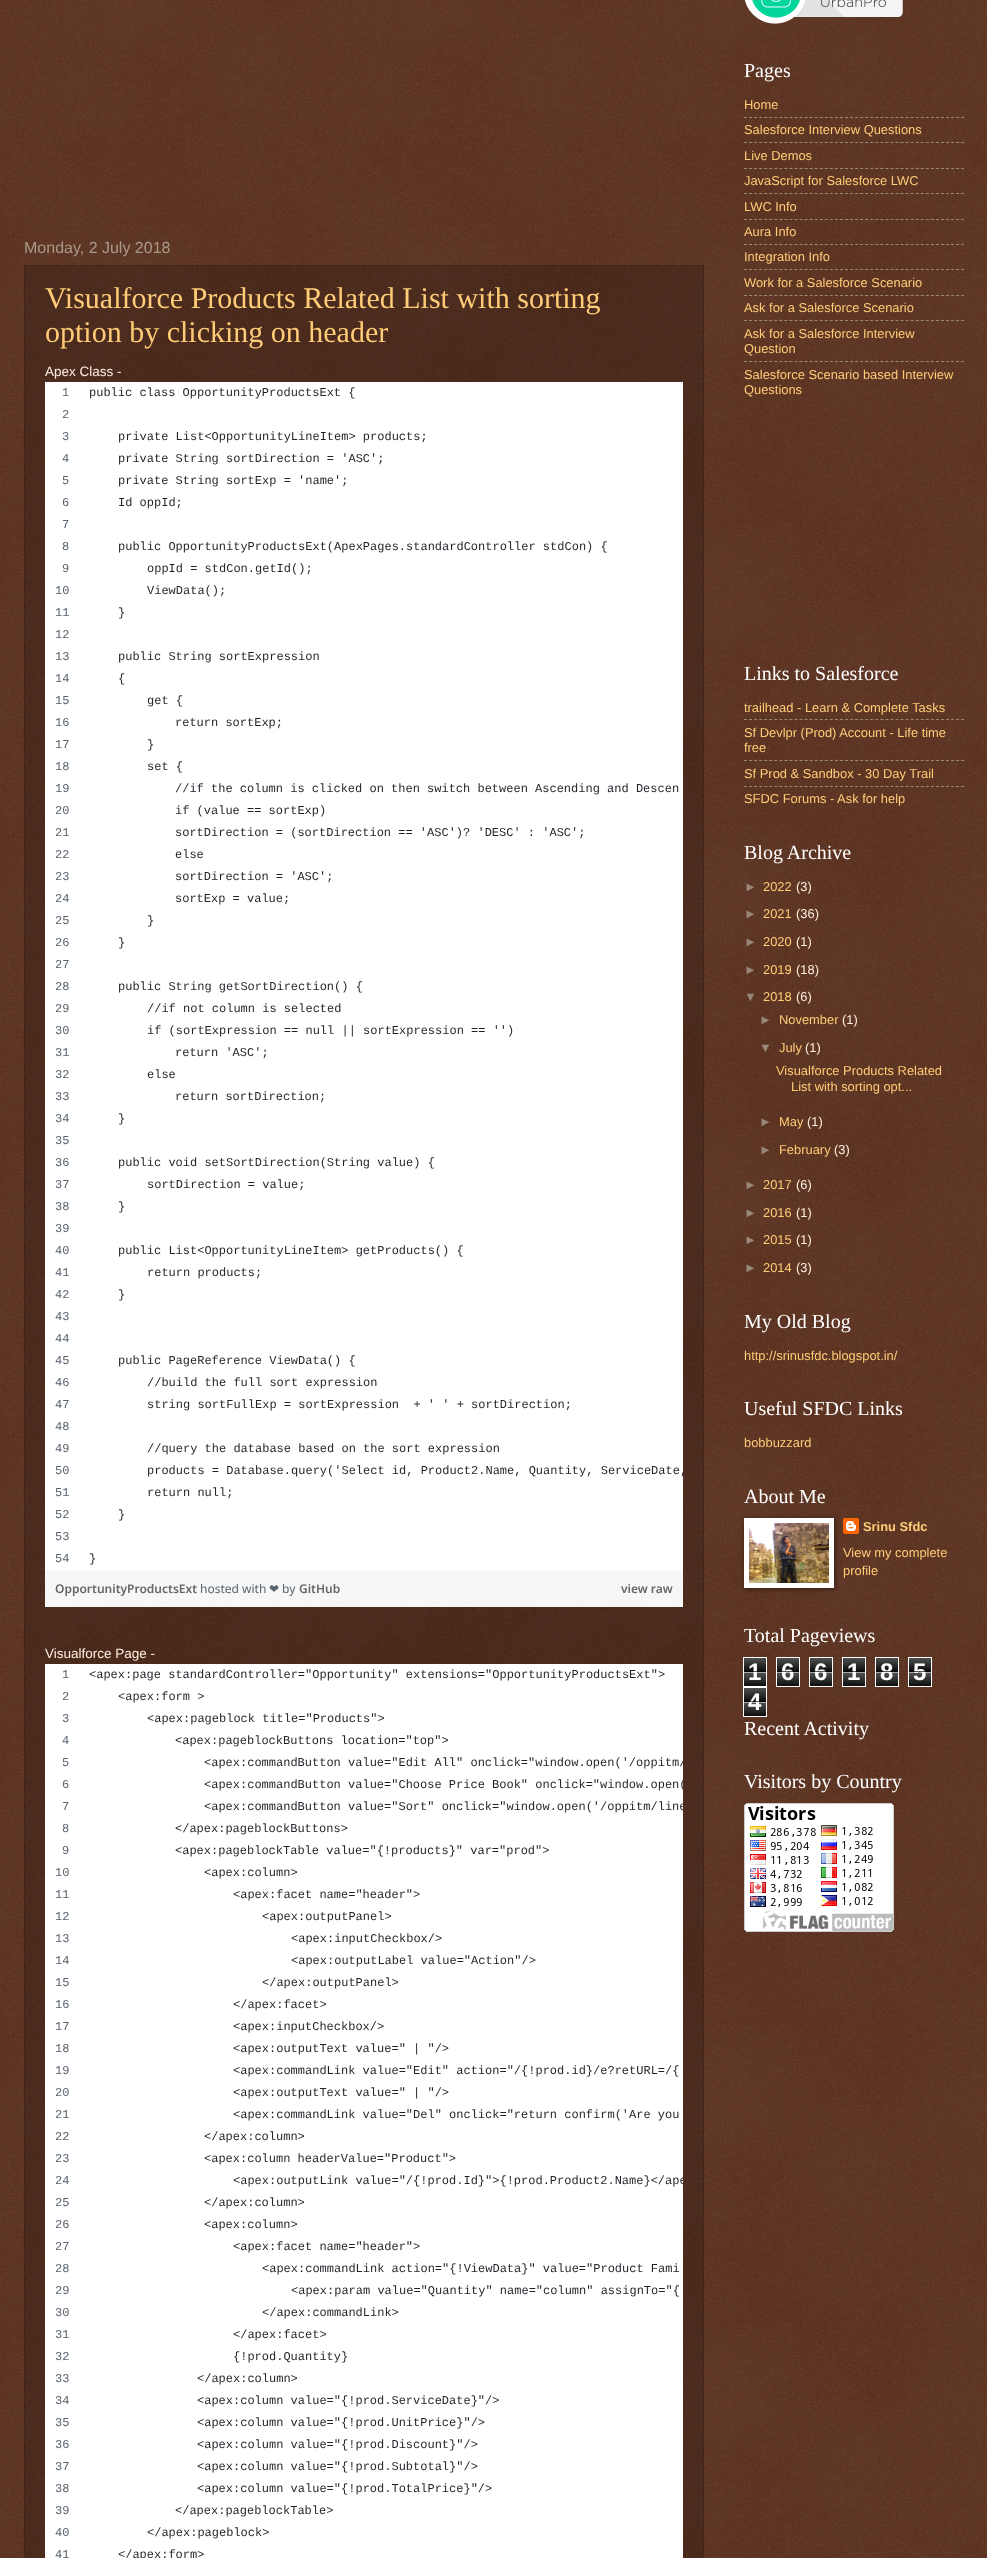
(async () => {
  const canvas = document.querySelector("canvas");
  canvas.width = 987;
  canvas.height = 2558;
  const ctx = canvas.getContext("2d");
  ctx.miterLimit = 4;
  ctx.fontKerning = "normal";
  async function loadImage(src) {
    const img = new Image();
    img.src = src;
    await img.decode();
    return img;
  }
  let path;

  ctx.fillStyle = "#441500";
  ctx.fillRect(0, 0, 987, 2558);
  ctx.drawImage(await loadImage("img/1.png"), 0, 0, 987, 2558);
  ctx.fillStyle = "rgba(0, 0, 0, 0.2)";
  ctx.fillRect(24, 265, 680, 2293);
  path = new Path2D("M24 265.5H704");
  ctx.strokeStyle = "#332211";
  ctx.setLineDash([1, 1]);
  ctx.stroke(path);
  path = new Path2D("M703.5 265V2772");
  ctx.stroke(path);
  path = new Path2D("M24.5 265V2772");
  ctx.stroke(path);
  for (const [x, y, w, h, color] of [
    [45, 382, 638, 1188, "#ffffff"],
    [45, 1570, 638, 37, "#f7f7f7"],
    [45, 1664, 638, 894, "#ffffff"],
  ]) {
    ctx.fillStyle = color;
    ctx.fillRect(x, y, w, h);
  }
  ctx.drawImage(await loadImage("img/2.png"), 744, 0, 159, 24);
  path = new Path2D("M744 117.5H964");
  ctx.strokeStyle = "#998877";
  ctx.setLineDash([3, 2.05]);
  ctx.stroke(path);
  path = new Path2D("M744 142.5H964");
  ctx.stroke(path);
  path = new Path2D("M744 168.5H964");
  ctx.stroke(path);
  path = new Path2D("M744 193.5H964");
  ctx.stroke(path);
  path = new Path2D("M744 219.5H964");
  ctx.stroke(path);
  path = new Path2D("M744 244.5H964");
  ctx.stroke(path);
  path = new Path2D("M744 269.5H964");
  ctx.stroke(path);
  path = new Path2D("M744 295.5H964");
  ctx.stroke(path);
  path = new Path2D("M744 320.5H964");
  ctx.stroke(path);
  path = new Path2D("M744 361.5H964");
  ctx.stroke(path);
  path = new Path2D("M744 719.5H964");
  ctx.stroke(path);
  path = new Path2D("M744 760.5H964");
  ctx.stroke(path);
  path = new Path2D("M744 786.5H964");
  ctx.stroke(path);
  ctx.drawImage(await loadImage("img/4.png"), 843, 1518, 16, 16);
  ctx.fillStyle = "rgba(0, 0, 0, 0.5)";
  ctx.filter = "blur(2.5px)";
  ctx.beginPath();
  ctx.rect(745, 1519, 90, 70);
  ctx.fill();
  ctx.filter = "none";
  ctx.fillStyle = "#ffffff";
  ctx.fillRect(744, 1518, 90, 70);
  ctx.drawImage(await loadImage("img/3.png"), 749, 1523, 80, 60);
  ctx.drawImage(await loadImage("img/5.png"), 744, 1658, 22, 28);
  ctx.strokeStyle = "#ffffff";
  ctx.setLineDash([]);
  ctx.strokeRect(743.5, 1657.5, 23, 29);
  ctx.drawImage(await loadImage("img/5.png"), 777, 1658, 22, 28);
  ctx.strokeRect(776.5, 1657.5, 23, 29);
  ctx.drawImage(await loadImage("img/5.png"), 810, 1658, 22, 28);
  ctx.strokeRect(809.5, 1657.5, 23, 29);
  ctx.drawImage(await loadImage("img/5.png"), 843, 1658, 22, 28);
  ctx.strokeRect(842.5, 1657.5, 23, 29);
  ctx.drawImage(await loadImage("img/5.png"), 876, 1658, 22, 28);
  ctx.strokeRect(875.5, 1657.5, 23, 29);
  ctx.drawImage(await loadImage("img/5.png"), 909, 1658, 22, 28);
  ctx.strokeRect(908.5, 1657.5, 23, 29);
  ctx.drawImage(await loadImage("img/5.png"), 744, 1688, 22, 28);
  ctx.strokeRect(743.5, 1687.5, 23, 29);
  ctx.drawImage(await loadImage("img/6.png"), 744, 1803, 150, 129);
  ctx.font = "16px Liberation Sans";
  ctx.fillStyle = "#aa9988";
  ctx.fillText("Monday, 2 July 2018", 24, 253);
  ctx.font = "30px Liberation Serif";
  ctx.fillStyle = "#ffcc77";
  ctx.fillText("Visualforce Products Related List with sorting", 45, 308);
  ctx.fillText("option by clicking on header", 45, 342);
  ctx.font = "13.5px Liberation Sans";
  ctx.fillStyle = "#ffeedd";
  ctx.fillText("Apex Class -", 45, 376);
  ctx.font = "12px Liberation Mono";
  ctx.fillStyle = "#59636e";
  ctx.fillText("1", 62, 396);
  ctx.fillStyle = "#1f2328";
  ctx.fillText("public class OpportunityProductsExt {", 89, 396);
  ctx.fillStyle = "#59636e";
  ctx.fillText("2", 62, 418);
  ctx.fillText("3", 62, 440);
  ctx.fillStyle = "#1f2328";
  ctx.fillText("private List<OpportunityLineItem> products;", 118, 440);
  ctx.fillStyle = "#59636e";
  ctx.fillText("4", 62, 462);
  ctx.fillStyle = "#1f2328";
  ctx.fillText("private String sortDirection = 'ASC';", 118, 462);
  ctx.fillStyle = "#59636e";
  ctx.fillText("5", 62, 484);
  ctx.fillStyle = "#1f2328";
  ctx.fillText("private String sortExp = 'name';", 118, 484);
  ctx.fillStyle = "#59636e";
  ctx.fillText("6", 62, 506);
  ctx.fillStyle = "#1f2328";
  ctx.fillText("Id oppId;", 118, 506);
  ctx.fillStyle = "#59636e";
  ctx.fillText("7", 62, 528);
  ctx.fillText("8", 62, 550);
  ctx.fillStyle = "#1f2328";
  ctx.fillText("public OpportunityProductsExt(ApexPages.standardController stdCon) {", 118, 550);
  ctx.fillStyle = "#59636e";
  ctx.fillText("9", 62, 572);
  ctx.fillStyle = "#1f2328";
  ctx.fillText("oppId = stdCon.getId();", 147, 572);
  ctx.fillStyle = "#59636e";
  ctx.fillText("10", 55, 594);
  ctx.fillStyle = "#1f2328";
  ctx.fillText("ViewData();", 147, 594);
  ctx.fillStyle = "#59636e";
  ctx.fillText("11", 55, 616);
  ctx.fillStyle = "#1f2328";
  ctx.fillText("}", 118, 616);
  ctx.fillStyle = "#59636e";
  ctx.fillText("12", 55, 638);
  ctx.fillText("13", 55, 660);
  ctx.fillStyle = "#1f2328";
  ctx.fillText("public String sortExpression", 118, 660);
  ctx.fillStyle = "#59636e";
  ctx.fillText("14", 55, 682);
  ctx.fillStyle = "#1f2328";
  ctx.fillText("{", 118, 682);
  ctx.fillStyle = "#59636e";
  ctx.fillText("15", 55, 704);
  ctx.fillStyle = "#1f2328";
  ctx.fillText("get {", 147, 704);
  ctx.fillStyle = "#59636e";
  ctx.fillText("16", 55, 726);
  ctx.fillStyle = "#1f2328";
  ctx.fillText("return sortExp;", 175, 726);
  ctx.fillStyle = "#59636e";
  ctx.fillText("17", 55, 748);
  ctx.fillStyle = "#1f2328";
  ctx.fillText("}", 147, 748);
  ctx.fillStyle = "#59636e";
  ctx.fillText("18", 55, 770);
  ctx.fillStyle = "#1f2328";
  ctx.fillText("set {", 147, 770);
  ctx.fillStyle = "#59636e";
  ctx.fillText("19", 55, 792);
  ctx.fillStyle = "#1f2328";
  ctx.fillText("//if the column is clicked on then switch between Ascending and Descen", 175, 792);
  ctx.fillStyle = "#59636e";
  ctx.fillText("20", 55, 814);
  ctx.fillStyle = "#1f2328";
  ctx.fillText("if (value == sortExp)", 175, 814);
  ctx.fillStyle = "#59636e";
  ctx.fillText("21", 55, 836);
  ctx.fillStyle = "#1f2328";
  ctx.fillText("sortDirection = (sortDirection == 'ASC')? 'DESC' : 'ASC';", 175, 836);
  ctx.fillStyle = "#59636e";
  ctx.fillText("22", 55, 858);
  ctx.fillStyle = "#1f2328";
  ctx.fillText("else", 175, 858);
  ctx.fillStyle = "#59636e";
  ctx.fillText("23", 55, 880);
  ctx.fillStyle = "#1f2328";
  ctx.fillText("sortDirection = 'ASC';", 175, 880);
  ctx.fillStyle = "#59636e";
  ctx.fillText("24", 55, 902);
  ctx.fillStyle = "#1f2328";
  ctx.fillText("sortExp = value;", 175, 902);
  ctx.fillStyle = "#59636e";
  ctx.fillText("25", 55, 924);
  ctx.fillStyle = "#1f2328";
  ctx.fillText("}", 147, 924);
  ctx.fillStyle = "#59636e";
  ctx.fillText("26", 55, 946);
  ctx.fillStyle = "#1f2328";
  ctx.fillText("}", 118, 946);
  ctx.fillStyle = "#59636e";
  ctx.fillText("27", 55, 968);
  ctx.fillText("28", 55, 990);
  ctx.fillStyle = "#1f2328";
  ctx.fillText("public String getSortDirection() {", 118, 990);
  ctx.fillStyle = "#59636e";
  ctx.fillText("29", 55, 1012);
  ctx.fillStyle = "#1f2328";
  ctx.fillText("//if not column is selected", 147, 1012);
  ctx.fillStyle = "#59636e";
  ctx.fillText("30", 55, 1034);
  ctx.fillStyle = "#1f2328";
  ctx.fillText("if (sortExpression == null || sortExpression == '')", 147, 1034);
  ctx.fillStyle = "#59636e";
  ctx.fillText("31", 55, 1056);
  ctx.fillStyle = "#1f2328";
  ctx.fillText("return 'ASC';", 175, 1056);
  ctx.fillStyle = "#59636e";
  ctx.fillText("32", 55, 1078);
  ctx.fillStyle = "#1f2328";
  ctx.fillText("else", 147, 1078);
  ctx.fillStyle = "#59636e";
  ctx.fillText("33", 55, 1100);
  ctx.fillStyle = "#1f2328";
  ctx.fillText("return sortDirection;", 175, 1100);
  ctx.fillStyle = "#59636e";
  ctx.fillText("34", 55, 1122);
  ctx.fillStyle = "#1f2328";
  ctx.fillText("}", 118, 1122);
  ctx.fillStyle = "#59636e";
  ctx.fillText("35", 55, 1144);
  ctx.fillText("36", 55, 1166);
  ctx.fillStyle = "#1f2328";
  ctx.fillText("public void setSortDirection(String value) {", 118, 1166);
  ctx.fillStyle = "#59636e";
  ctx.fillText("37", 55, 1188);
  ctx.fillStyle = "#1f2328";
  ctx.fillText("sortDirection = value;", 147, 1188);
  ctx.fillStyle = "#59636e";
  ctx.fillText("38", 55, 1210);
  ctx.fillStyle = "#1f2328";
  ctx.fillText("}", 118, 1210);
  ctx.fillStyle = "#59636e";
  ctx.fillText("39", 55, 1232);
  ctx.fillText("40", 55, 1254);
  ctx.fillStyle = "#1f2328";
  ctx.fillText("public List<OpportunityLineItem> getProducts() {", 118, 1254);
  ctx.fillStyle = "#59636e";
  ctx.fillText("41", 55, 1276);
  ctx.fillStyle = "#1f2328";
  ctx.fillText("return products;", 147, 1276);
  ctx.fillStyle = "#59636e";
  ctx.fillText("42", 55, 1298);
  ctx.fillStyle = "#1f2328";
  ctx.fillText("}", 118, 1298);
  ctx.fillStyle = "#59636e";
  for (const [text, x, y] of [
    ["43", 55, 1320],
    ["44", 55, 1342],
    ["45", 55, 1364],
  ]) {
    ctx.fillText(text, x, y);
  }
  ctx.fillStyle = "#1f2328";
  ctx.fillText("public PageReference ViewData() {", 118, 1364);
  ctx.fillStyle = "#59636e";
  ctx.fillText("46", 55, 1386);
  ctx.fillStyle = "#1f2328";
  ctx.fillText("//build the full sort expression", 147, 1386);
  ctx.fillStyle = "#59636e";
  ctx.fillText("47", 55, 1408);
  ctx.fillStyle = "#1f2328";
  ctx.fillText("string sortFullExp = sortExpression  + ' ' + sortDirection;", 147, 1408);
  ctx.fillStyle = "#59636e";
  ctx.fillText("48", 55, 1430);
  ctx.fillText("49", 55, 1452);
  ctx.fillStyle = "#1f2328";
  ctx.fillText("//query the database based on the sort expression", 147, 1452);
  ctx.fillStyle = "#59636e";
  ctx.fillText("50", 55, 1474);
  ctx.fillStyle = "#1f2328";
  ctx.fillText("products = Database.query('Select id, Product2.Name, Quantity, ServiceDate,", 147, 1474);
  ctx.fillStyle = "#59636e";
  ctx.fillText("51", 55, 1496);
  ctx.fillStyle = "#1f2328";
  ctx.fillText("return null;", 147, 1496);
  ctx.fillStyle = "#59636e";
  ctx.fillText("52", 55, 1518);
  ctx.fillStyle = "#1f2328";
  ctx.fillText("}", 118, 1518);
  ctx.fillStyle = "#59636e";
  ctx.fillText("53", 55, 1540);
  ctx.fillText("54", 55, 1562);
  ctx.fillStyle = "#1f2328";
  ctx.fillText("}", 89, 1562);
  ctx.font = "600 12px Noto Sans";
  ctx.fillStyle = "#666666";
  ctx.fillText("OpportunityProductsExt", 55, 1593);
  ctx.font = "12px Noto Sans";
  ctx.fillStyle = "#59636e";
  ctx.fillText("hosted with", 200, 1593);
  ctx.font = "12px DejaVu Sans";
  ctx.fillText("❤", 269, 1593);
  ctx.font = "12px Noto Sans";
  ctx.fillText("by", 282, 1593);
  ctx.font = "600 12px Noto Sans";
  ctx.fillStyle = "#666666";
  ctx.fillText("GitHub", 299, 1593);
  ctx.fillText("view raw", 621, 1593);
  ctx.font = "13.5px Liberation Sans";
  ctx.fillStyle = "#ffeedd";
  ctx.fillText("Visualforce Page -", 45, 1658);
  ctx.font = "12px Liberation Mono";
  ctx.fillStyle = "#59636e";
  ctx.fillText("1", 62, 1678);
  ctx.fillStyle = "#1f2328";
  ctx.fillText("<apex:page standardController=\"Opportunity\" extensions=\"OpportunityProductsExt\">", 89, 1678);
  ctx.fillStyle = "#59636e";
  ctx.fillText("2", 62, 1700);
  ctx.fillStyle = "#1f2328";
  ctx.fillText("<apex:form >", 118, 1700);
  ctx.fillStyle = "#59636e";
  ctx.fillText("3", 62, 1722);
  ctx.fillStyle = "#1f2328";
  ctx.fillText("<apex:pageblock title=\"Products\">", 147, 1722);
  ctx.fillStyle = "#59636e";
  ctx.fillText("4", 62, 1744);
  ctx.fillStyle = "#1f2328";
  ctx.fillText("<apex:pageblockButtons location=\"top\">", 175, 1744);
  ctx.fillStyle = "#59636e";
  ctx.fillText("5", 62, 1766);
  ctx.save();
  ctx.beginPath();
  ctx.rect(45, 1664, 638, 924);
  ctx.clip();
  ctx.fillStyle = "#1f2328";
  ctx.fillText("<apex:commandButton value=\"Edit All\" onclick=\"window.open('/oppitm/", 204, 1766);
  ctx.restore();
  ctx.fillText("6", 62, 1788);
  ctx.save();
  ctx.beginPath();
  ctx.rect(45, 1664, 638, 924);
  ctx.clip();
  ctx.fillStyle = "#1f2328";
  ctx.fillText("<apex:commandButton value=\"Choose Price Book\" onclick=\"window.open(", 204, 1788);
  ctx.restore();
  ctx.fillText("7", 62, 1810);
  ctx.save();
  ctx.beginPath();
  ctx.rect(45, 1664, 638, 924);
  ctx.clip();
  ctx.fillStyle = "#1f2328";
  ctx.fillText("<apex:commandButton value=\"Sort\" onclick=\"window.open('/oppitm/line", 204, 1810);
  ctx.restore();
  ctx.fillText("8", 62, 1832);
  ctx.fillStyle = "#1f2328";
  ctx.fillText("<\/apex:pageblockButtons>", 175, 1832);
  ctx.fillStyle = "#59636e";
  ctx.fillText("9", 62, 1854);
  ctx.fillStyle = "#1f2328";
  ctx.fillText("<apex:pageblockTable value=\"{!products}\" var=\"prod\">", 175, 1854);
  ctx.fillStyle = "#59636e";
  ctx.fillText("10", 55, 1876);
  ctx.fillStyle = "#1f2328";
  ctx.fillText("<apex:column>", 204, 1876);
  ctx.fillStyle = "#59636e";
  ctx.fillText("11", 55, 1898);
  ctx.fillStyle = "#1f2328";
  ctx.fillText("<apex:facet name=\"header\">", 233, 1898);
  ctx.fillStyle = "#59636e";
  ctx.fillText("12", 55, 1920);
  ctx.fillStyle = "#1f2328";
  ctx.fillText("<apex:outputPanel>", 262, 1920);
  ctx.fillStyle = "#59636e";
  ctx.fillText("13", 55, 1942);
  ctx.fillStyle = "#1f2328";
  ctx.fillText("<apex:inputCheckbox/>", 291, 1942);
  ctx.fillStyle = "#59636e";
  ctx.fillText("14", 55, 1964);
  ctx.fillStyle = "#1f2328";
  ctx.fillText("<apex:outputLabel value=\"Action\"/>", 291, 1964);
  ctx.fillStyle = "#59636e";
  ctx.fillText("15", 55, 1986);
  ctx.fillStyle = "#1f2328";
  ctx.fillText("<\/apex:outputPanel>", 262, 1986);
  ctx.fillStyle = "#59636e";
  ctx.fillText("16", 55, 2008);
  ctx.fillStyle = "#1f2328";
  ctx.fillText("<\/apex:facet>", 233, 2008);
  ctx.fillStyle = "#59636e";
  ctx.fillText("17", 55, 2030);
  ctx.fillStyle = "#1f2328";
  ctx.fillText("<apex:inputCheckbox/>", 233, 2030);
  ctx.fillStyle = "#59636e";
  ctx.fillText("18", 55, 2052);
  ctx.fillStyle = "#1f2328";
  ctx.fillText("<apex:outputText value=\" | \"/>", 233, 2052);
  ctx.fillStyle = "#59636e";
  ctx.fillText("19", 55, 2074);
  ctx.fillStyle = "#1f2328";
  ctx.fillText("<apex:commandLink value=\"Edit\" action=\"/{!prod.id}/e?retURL=/{", 233, 2074);
  ctx.fillStyle = "#59636e";
  ctx.fillText("20", 55, 2096);
  ctx.fillStyle = "#1f2328";
  ctx.fillText("<apex:outputText value=\" | \"/>", 233, 2096);
  ctx.fillStyle = "#59636e";
  ctx.fillText("21", 55, 2118);
  ctx.fillStyle = "#1f2328";
  ctx.fillText("<apex:commandLink value=\"Del\" onclick=\"return confirm('Are you", 233, 2118);
  ctx.fillStyle = "#59636e";
  ctx.fillText("22", 55, 2140);
  ctx.fillStyle = "#1f2328";
  ctx.fillText("<\/apex:column>", 204, 2140);
  ctx.fillStyle = "#59636e";
  ctx.fillText("23", 55, 2162);
  ctx.fillStyle = "#1f2328";
  ctx.fillText("<apex:column headerValue=\"Product\">", 204, 2162);
  ctx.fillStyle = "#59636e";
  ctx.fillText("24", 55, 2184);
  ctx.save();
  ctx.beginPath();
  ctx.rect(45, 1664, 638, 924);
  ctx.clip();
  ctx.fillStyle = "#1f2328";
  ctx.fillText("<apex:outputLink value=\"/{!prod.Id}\">{!prod.Product2.Name}<\/ape", 233, 2184);
  ctx.restore();
  ctx.fillText("25", 55, 2206);
  ctx.fillStyle = "#1f2328";
  ctx.fillText("<\/apex:column>", 204, 2206);
  ctx.fillStyle = "#59636e";
  ctx.fillText("26", 55, 2228);
  ctx.fillStyle = "#1f2328";
  ctx.fillText("<apex:column>", 204, 2228);
  ctx.fillStyle = "#59636e";
  ctx.fillText("27", 55, 2250);
  ctx.fillStyle = "#1f2328";
  ctx.fillText("<apex:facet name=\"header\">", 233, 2250);
  ctx.fillStyle = "#59636e";
  ctx.fillText("28", 55, 2272);
  ctx.fillStyle = "#1f2328";
  ctx.fillText("<apex:commandLink action=\"{!ViewData}\" value=\"Product Fami", 262, 2272);
  ctx.fillStyle = "#59636e";
  ctx.fillText("29", 55, 2294);
  ctx.fillStyle = "#1f2328";
  ctx.fillText("<apex:param value=\"Quantity\" name=\"column\" assignTo=\"{", 291, 2294);
  ctx.fillStyle = "#59636e";
  ctx.fillText("30", 55, 2316);
  ctx.fillStyle = "#1f2328";
  ctx.fillText("<\/apex:commandLink>", 262, 2316);
  ctx.fillStyle = "#59636e";
  ctx.fillText("31", 55, 2338);
  ctx.fillStyle = "#1f2328";
  ctx.fillText("<\/apex:facet>", 233, 2338);
  ctx.fillStyle = "#59636e";
  ctx.fillText("32", 55, 2360);
  ctx.fillStyle = "#1f2328";
  ctx.fillText("{!prod.Quantity}", 233, 2360);
  ctx.fillStyle = "#59636e";
  ctx.fillText("33", 55, 2382);
  ctx.fillStyle = "#1f2328";
  ctx.fillText("<\/apex:column>", 197, 2382);
  ctx.fillStyle = "#59636e";
  ctx.fillText("34", 55, 2404);
  ctx.fillStyle = "#1f2328";
  ctx.fillText("<apex:column value=\"{!prod.ServiceDate}\"/>", 197, 2404);
  ctx.fillStyle = "#59636e";
  ctx.fillText("35", 55, 2426);
  ctx.fillStyle = "#1f2328";
  ctx.fillText("<apex:column value=\"{!prod.UnitPrice}\"/>", 197, 2426);
  ctx.fillStyle = "#59636e";
  ctx.fillText("36", 55, 2448);
  ctx.fillStyle = "#1f2328";
  ctx.fillText("<apex:column value=\"{!prod.Discount}\"/>", 197, 2448);
  ctx.fillStyle = "#59636e";
  ctx.fillText("37", 55, 2470);
  ctx.fillStyle = "#1f2328";
  ctx.fillText("<apex:column value=\"{!prod.Subtotal}\"/>", 197, 2470);
  ctx.fillStyle = "#59636e";
  ctx.fillText("38", 55, 2492);
  ctx.fillStyle = "#1f2328";
  ctx.fillText("<apex:column value=\"{!prod.TotalPrice}\"/>", 197, 2492);
  ctx.fillStyle = "#59636e";
  ctx.fillText("39", 55, 2514);
  ctx.fillStyle = "#1f2328";
  ctx.fillText("<\/apex:pageblockTable>", 175, 2514);
  ctx.fillStyle = "#59636e";
  ctx.fillText("40", 55, 2536);
  ctx.fillStyle = "#1f2328";
  ctx.fillText("<\/apex:pageblock>", 147, 2536);
  ctx.fillStyle = "#59636e";
  ctx.fillText("41", 55, 2558);
  ctx.fillStyle = "#1f2328";
  ctx.fillText("<\/apex:form>", 118, 2558);
  ctx.font = "20px Liberation Serif";
  ctx.fillStyle = "#ffffff";
  ctx.fillText("Pages", 744, 77);
  ctx.font = "12.9px Liberation Sans";
  ctx.fillStyle = "#ffcc77";
  for (const [text, x, y] of [
    ["Home", 744, 109],
    ["Salesforce Interview Questions", 744, 134],
    ["Live Demos", 744, 160],
    ["JavaScript for Salesforce LWC", 744, 185],
    ["LWC Info", 744, 211],
    ["Aura Info", 744, 236],
    ["Integration Info", 744, 261],
    ["Work for a Salesforce Scenario", 744, 287],
    ["Ask for a Salesforce Scenario", 744, 312],
    ["Ask for a Salesforce Interview", 744, 338],
    ["Question", 744, 353],
    ["Salesforce Scenario based Interview", 744, 379],
    ["Questions", 744, 394],
  ]) {
    ctx.fillText(text, x, y);
  }
  ctx.font = "20px Liberation Serif";
  ctx.fillStyle = "#ffffff";
  ctx.fillText("Links to Salesforce", 744, 680);
  ctx.font = "12.9px Liberation Sans";
  ctx.fillStyle = "#ffcc77";
  for (const [text, x, y] of [
    ["trailhead - Learn & Complete Tasks", 744, 712],
    ["Sf Devlpr (Prod) Account - Life time", 744, 737],
    ["free", 744, 752],
    ["Sf Prod & Sandbox - 30 Day Trail", 744, 778],
    ["SFDC Forums - Ask for help", 744, 803],
  ]) {
    ctx.fillText(text, x, y);
  }
  ctx.font = "20px Liberation Serif";
  ctx.fillStyle = "#ffffff";
  ctx.fillText("Blog Archive", 744, 859);
  ctx.font = "12.9px Liberation Sans";
  ctx.fillStyle = "#998877";
  ctx.fillText("►", 744, 891);
  ctx.fillStyle = "#ffcc77";
  ctx.fillText("2022", 763, 891);
  ctx.fillStyle = "#ffeedd";
  ctx.fillText("(3)", 796, 891);
  ctx.fillStyle = "#998877";
  ctx.fillText("►", 744, 918);
  ctx.fillStyle = "#ffcc77";
  ctx.fillText("2021", 763, 918);
  ctx.fillStyle = "#ffeedd";
  ctx.fillText("(36)", 796, 918);
  ctx.fillStyle = "#998877";
  ctx.fillText("►", 744, 946);
  ctx.fillStyle = "#ffcc77";
  ctx.fillText("2020", 763, 946);
  ctx.fillStyle = "#ffeedd";
  ctx.fillText("(1)", 796, 946);
  ctx.fillStyle = "#998877";
  ctx.fillText("►", 744, 974);
  ctx.fillStyle = "#ffcc77";
  ctx.fillText("2019", 763, 974);
  ctx.fillStyle = "#ffeedd";
  ctx.fillText("(18)", 796, 974);
  ctx.fillStyle = "#998877";
  ctx.fillText("▼", 744, 1001);
  ctx.fillStyle = "#ffcc77";
  ctx.fillText("2018", 763, 1001);
  ctx.fillStyle = "#ffeedd";
  ctx.fillText("(6)", 796, 1001);
  ctx.fillStyle = "#998877";
  ctx.fillText("►", 759, 1024);
  ctx.fillStyle = "#ffcc77";
  ctx.fillText("November", 779, 1024);
  ctx.fillStyle = "#ffeedd";
  ctx.fillText("(1)", 842, 1024);
  ctx.fillStyle = "#998877";
  ctx.fillText("▼", 759, 1052);
  ctx.fillStyle = "#ffcc77";
  ctx.fillText("July", 779, 1052);
  ctx.fillStyle = "#ffeedd";
  ctx.fillText("(1)", 805, 1052);
  ctx.fillStyle = "#ffcc77";
  ctx.fillText("Visualforce Products Related", 776, 1075);
  ctx.fillText("List with sorting opt...", 791, 1091);
  ctx.fillStyle = "#998877";
  ctx.fillText("►", 759, 1126);
  ctx.fillStyle = "#ffcc77";
  ctx.fillText("May", 779, 1126);
  ctx.fillStyle = "#ffeedd";
  ctx.fillText("(1)", 807, 1126);
  ctx.fillStyle = "#998877";
  ctx.fillText("►", 759, 1154);
  ctx.fillStyle = "#ffcc77";
  ctx.fillText("February", 779, 1154);
  ctx.fillStyle = "#ffeedd";
  ctx.fillText("(3)", 834, 1154);
  ctx.fillStyle = "#998877";
  ctx.fillText("►", 744, 1189);
  ctx.fillStyle = "#ffcc77";
  ctx.fillText("2017", 763, 1189);
  ctx.fillStyle = "#ffeedd";
  ctx.fillText("(6)", 796, 1189);
  ctx.fillStyle = "#998877";
  ctx.fillText("►", 744, 1217);
  ctx.fillStyle = "#ffcc77";
  ctx.fillText("2016", 763, 1217);
  ctx.fillStyle = "#ffeedd";
  ctx.fillText("(1)", 796, 1217);
  ctx.fillStyle = "#998877";
  ctx.fillText("►", 744, 1244);
  ctx.fillStyle = "#ffcc77";
  ctx.fillText("2015", 763, 1244);
  ctx.fillStyle = "#ffeedd";
  ctx.fillText("(1)", 796, 1244);
  ctx.fillStyle = "#998877";
  ctx.fillText("►", 744, 1272);
  ctx.fillStyle = "#ffcc77";
  ctx.fillText("2014", 763, 1272);
  ctx.fillStyle = "#ffeedd";
  ctx.fillText("(3)", 796, 1272);
  ctx.font = "20px Liberation Serif";
  ctx.fillStyle = "#ffffff";
  ctx.fillText("My Old Blog", 744, 1328);
  ctx.font = "12.9px Liberation Sans";
  ctx.fillStyle = "#ffcc77";
  ctx.fillText("http://srinusfdc.blogspot.in/", 744, 1360);
  ctx.font = "20px Liberation Serif";
  ctx.fillStyle = "#ffffff";
  ctx.fillText("Useful SFDC Links", 744, 1415);
  ctx.font = "12.9px Liberation Sans";
  ctx.fillStyle = "#ffcc77";
  ctx.fillText("bobbuzzard", 744, 1447);
  ctx.font = "20px Liberation Serif";
  ctx.fillStyle = "#ffffff";
  ctx.fillText("About Me", 744, 1503);
  ctx.font = "bold 12.9px Liberation Sans";
  ctx.fillStyle = "#ffcc77";
  ctx.fillText("Srinu Sfdc", 863, 1531);
  ctx.font = "12.9px Liberation Sans";
  ctx.fillText("View my complete", 843, 1557);
  ctx.fillText("profile", 843, 1575);
  ctx.font = "20px Liberation Serif";
  ctx.fillStyle = "#ffffff";
  ctx.fillText("Total Pageviews", 744, 1642);
  ctx.font = "bold 24px Liberation Sans";
  ctx.fillText("1", 748, 1680);
  ctx.fillStyle = "rgba(0, 0, 0, 0.65)";
  ctx.fillRect(744, 1671, 22, 1);
  ctx.fillStyle = "rgba(255, 255, 255, 0.65)";
  ctx.fillRect(744, 1672, 22, 1);
  ctx.fillStyle = "#ffffff";
  ctx.fillText("6", 781, 1680);
  ctx.fillStyle = "rgba(0, 0, 0, 0.65)";
  ctx.fillRect(777, 1671, 22, 1);
  ctx.fillStyle = "rgba(255, 255, 255, 0.65)";
  ctx.fillRect(777, 1672, 22, 1);
  ctx.fillStyle = "#ffffff";
  ctx.fillText("6", 814, 1680);
  ctx.fillStyle = "rgba(0, 0, 0, 0.65)";
  ctx.fillRect(810, 1671, 22, 1);
  ctx.fillStyle = "rgba(255, 255, 255, 0.65)";
  ctx.fillRect(810, 1672, 22, 1);
  ctx.fillStyle = "#ffffff";
  ctx.fillText("1", 847, 1680);
  ctx.fillStyle = "rgba(0, 0, 0, 0.65)";
  ctx.fillRect(843, 1671, 22, 1);
  ctx.fillStyle = "rgba(255, 255, 255, 0.65)";
  ctx.fillRect(843, 1672, 22, 1);
  ctx.fillStyle = "#ffffff";
  ctx.fillText("8", 880, 1680);
  ctx.fillStyle = "rgba(0, 0, 0, 0.65)";
  ctx.fillRect(876, 1671, 22, 1);
  ctx.fillStyle = "rgba(255, 255, 255, 0.65)";
  ctx.fillRect(876, 1672, 22, 1);
  ctx.fillStyle = "#ffffff";
  ctx.fillText("5", 913, 1680);
  ctx.fillStyle = "rgba(0, 0, 0, 0.65)";
  ctx.fillRect(909, 1671, 22, 1);
  ctx.fillStyle = "rgba(255, 255, 255, 0.65)";
  ctx.fillRect(909, 1672, 22, 1);
  ctx.fillStyle = "#ffffff";
  ctx.fillText("4", 748, 1710);
  ctx.fillStyle = "rgba(0, 0, 0, 0.65)";
  ctx.fillRect(744, 1701, 22, 1);
  ctx.fillStyle = "rgba(255, 255, 255, 0.65)";
  ctx.fillRect(744, 1702, 22, 1);
  ctx.font = "20px Liberation Serif";
  ctx.fillStyle = "#ffffff";
  ctx.fillText("Recent Activity", 744, 1735);
  ctx.fillText("Visitors by Country", 744, 1788);
})();
